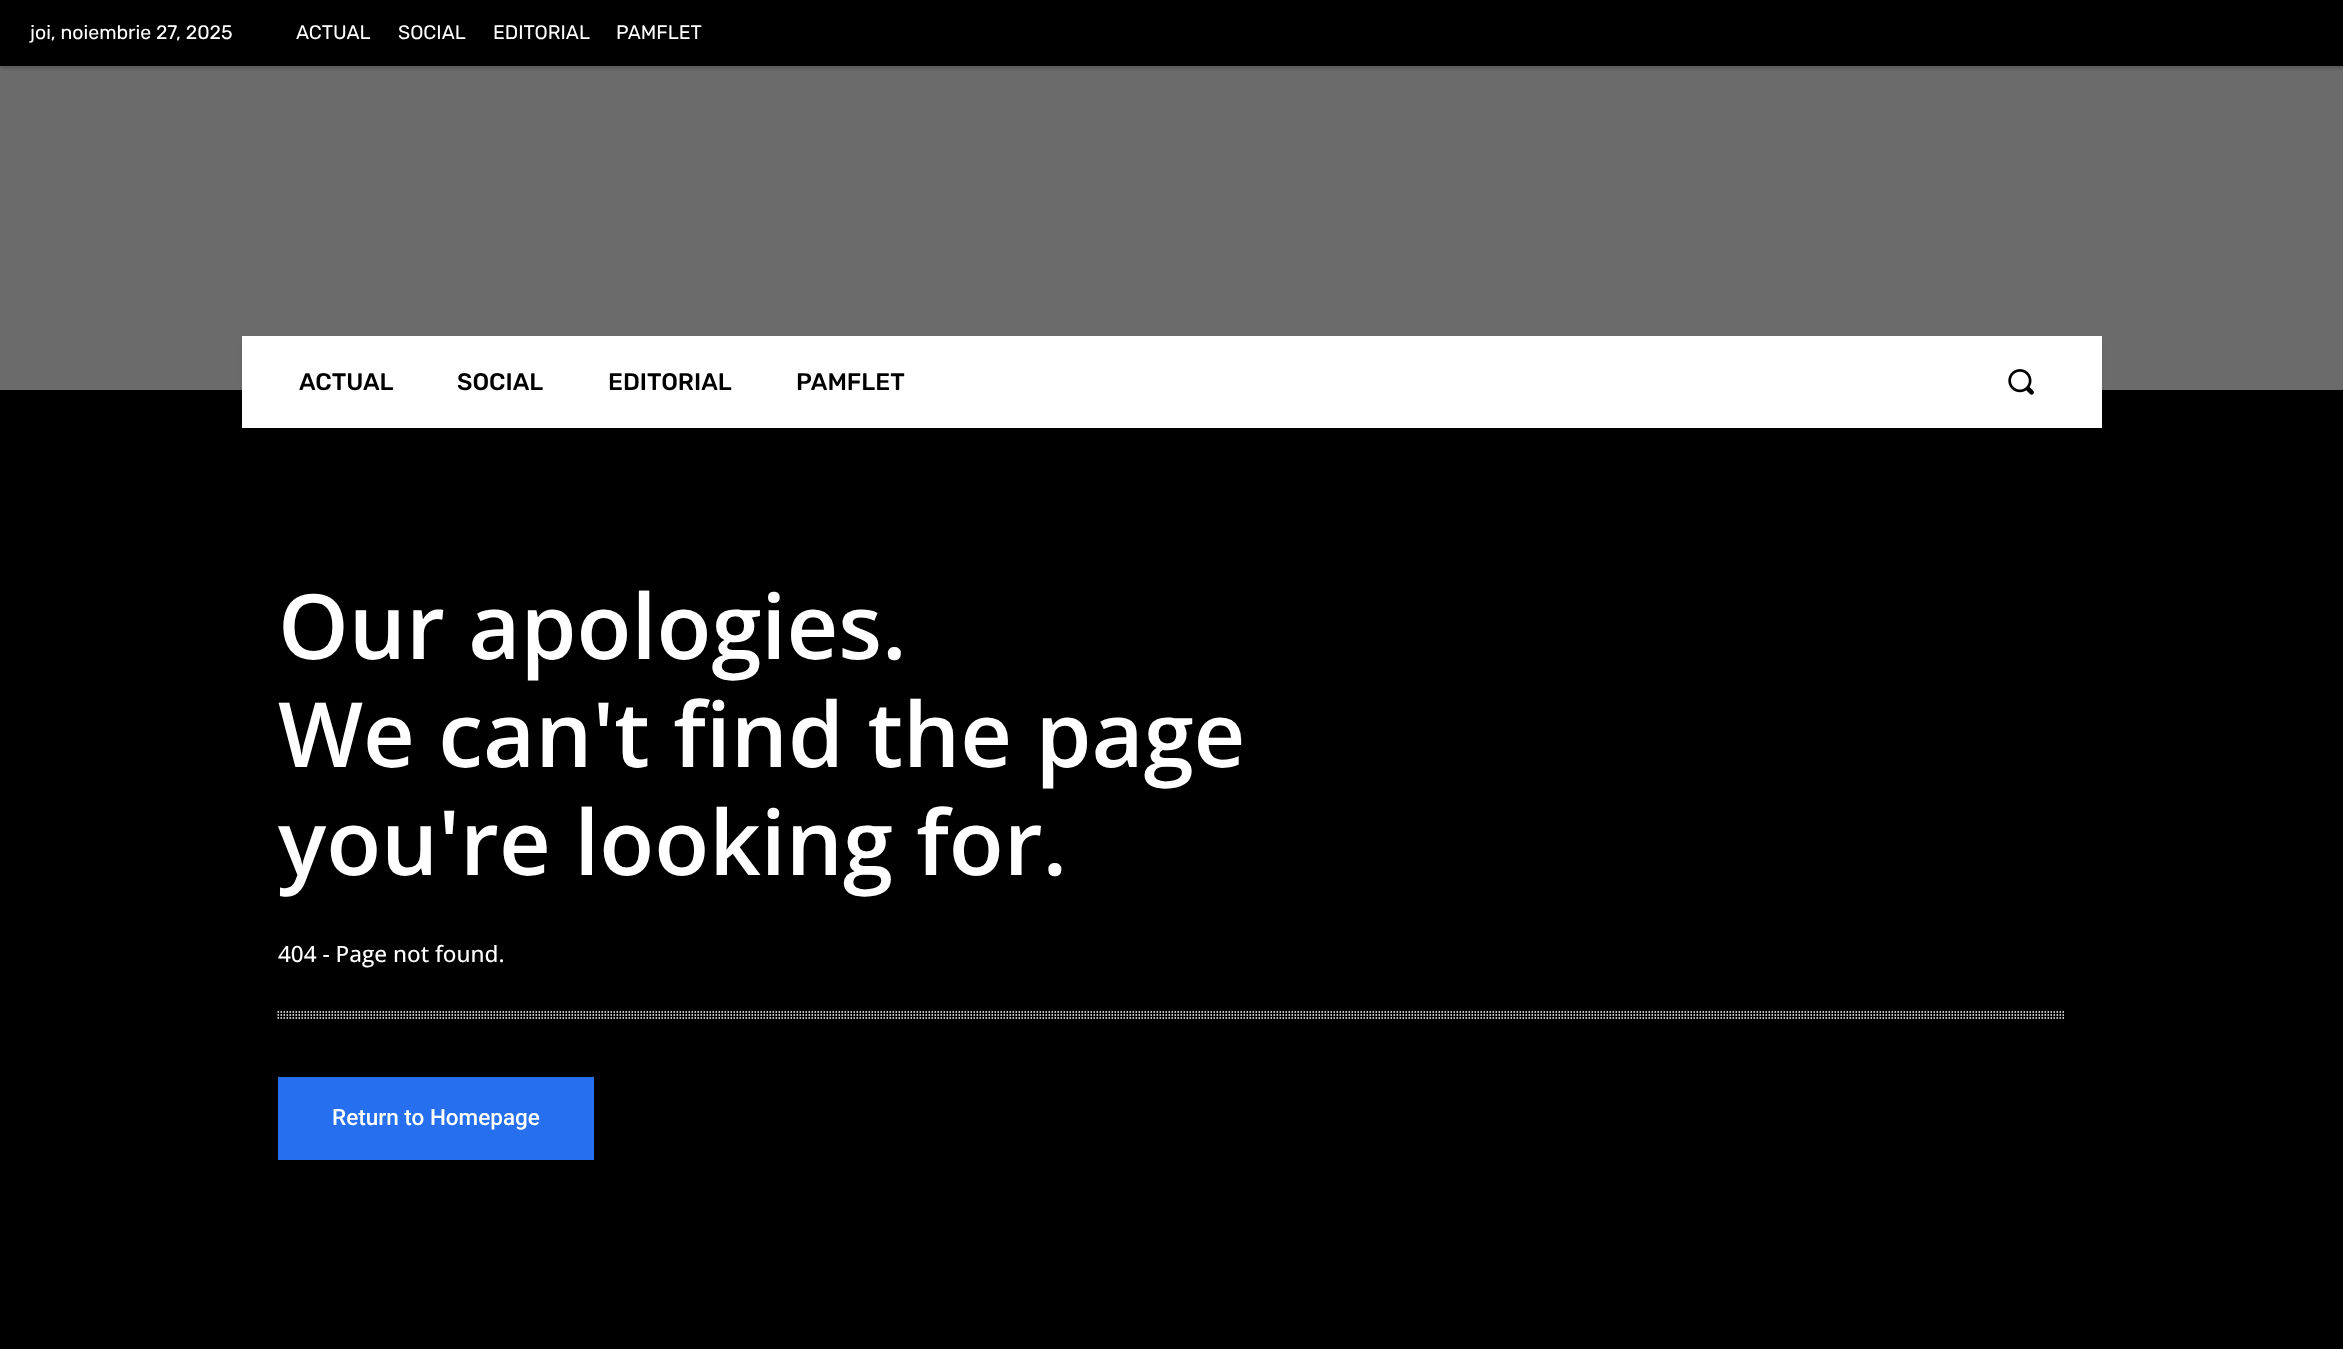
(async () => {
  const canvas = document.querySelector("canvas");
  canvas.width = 2343;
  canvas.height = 1349;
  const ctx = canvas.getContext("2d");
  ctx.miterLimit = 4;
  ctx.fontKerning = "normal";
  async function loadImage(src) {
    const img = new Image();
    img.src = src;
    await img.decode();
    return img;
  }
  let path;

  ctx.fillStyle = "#000000";
  ctx.fillRect(0, 0, 2343, 1349);
  ctx.fillStyle = "#6b6b6b";
  ctx.fillRect(0, 66, 2343, 324);
  ctx.save();
  ctx.beginPath();
  ctx.rect(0, 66, 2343, 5);
  ctx.clip();
  ctx.fillStyle = "rgba(10, 0, 0, 0.15)";
  ctx.filter = "blur(1.5px)";
  ctx.beginPath();
  ctx.rect(0, 3, 2343, 66);
  ctx.fill();
  ctx.filter = "none";
  ctx.restore();
  ctx.fillStyle = "#ffffff";
  ctx.fillRect(242, 336, 1860, 92);
  ctx.save();
  path = new Path2D("M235 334H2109V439H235ZM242 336H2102V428H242Z");
  ctx.clip(path, "evenodd");
  ctx.fillStyle = "rgba(0, 0, 0, 0.08)";
  ctx.filter = "blur(2px)";
  ctx.beginPath();
  ctx.rect(242, 341, 1860, 91);
  ctx.fill();
  ctx.filter = "none";
  ctx.restore();
  ctx.drawImage(await loadImage("img/1.png"), 2008, 369, 26, 26);
  path = new Path2D("M277.5 1012H2065.5");
  ctx.strokeStyle = "#ffffff";
  ctx.lineWidth = 1.5;
  ctx.setLineDash([1.5, 1.5]);
  ctx.stroke(path);
  path = new Path2D("M277.5 1015H2065.5");
  ctx.stroke(path);
  path = new Path2D("M277.5 1018H2065.5");
  ctx.stroke(path);
  ctx.fillStyle = "#266fef";
  ctx.fillRect(278, 1077, 316, 83);
  ctx.font = "19.5px Rubik";
  ctx.fillStyle = "#ffffff";
  for (const [text, x, y] of [
    ["joi, noiembrie 27, 2025", 30, 39],
    ["ACTUAL", 296, 39],
    ["SOCIAL", 398, 39],
    ["EDITORIAL", 493, 39],
    ["PAMFLET", 616, 39],
  ]) {
    ctx.fillText(text, x, y);
  }
  ctx.font = "500 24px Rubik";
  ctx.fillStyle = "#000000";
  for (const [text, x, y] of [
    ["ACTUAL", 299, 390],
    ["SOCIAL", 457, 390],
    ["EDITORIAL", 608, 390],
    ["PAMFLET", 796, 390],
  ]) {
    ctx.fillText(text, x, y);
  }
  ctx.font = "600 90px Open Sans";
  ctx.fillStyle = "#ffffff";
  for (const [text, x, y] of [
    ["Our apologies.", 278, 659],
    ["We can't find the page", 278, 767],
    ["you're looking for.", 278, 875],
  ]) {
    ctx.fillText(text, x, y);
  }
  ctx.font = "500 22.5px Open Sans";
  ctx.fillText("404 - Page not found.", 278, 962);
  ctx.font = "500 22.5px Roboto";
  ctx.fillText("Return to Homepage", 332, 1125);
})();
